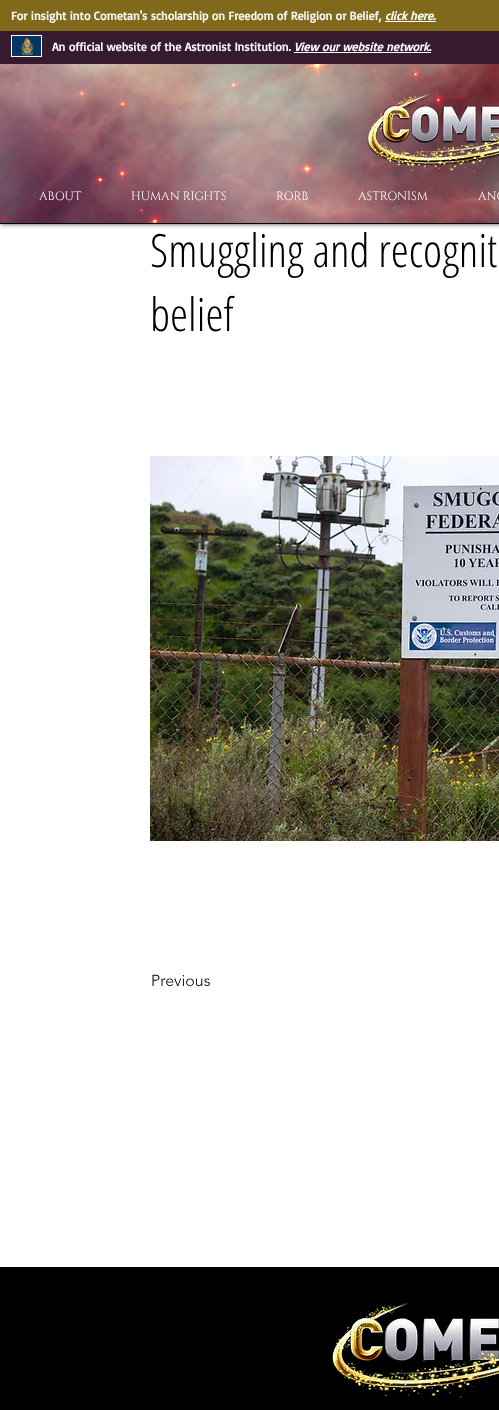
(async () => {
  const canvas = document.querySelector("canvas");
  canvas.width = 499;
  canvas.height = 1410;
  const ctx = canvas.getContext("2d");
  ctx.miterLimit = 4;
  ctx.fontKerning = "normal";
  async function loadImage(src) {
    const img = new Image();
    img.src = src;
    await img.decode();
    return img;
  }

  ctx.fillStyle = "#ffffff";
  ctx.fillRect(0, 0, 499, 1410);
  ctx.fillStyle = "rgba(0, 0, 0, 0.7)";
  ctx.filter = "blur(2.5px)";
  ctx.beginPath();
  ctx.rect(0, 0, 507, 224);
  ctx.fill();
  ctx.filter = "none";
  for (const [x, y, w, h, color] of [
    [0, 223, 499, 1, "#000000"],
    [0, 0, 499, 31, "#80691b"],
    [385, 21, 51, 1, "#ffffff"],
    [0, 31, 499, 33, "#361a2e"],
    [11, 35, 31, 22, "#ffffff"],
  ]) {
    ctx.fillStyle = color;
    ctx.fillRect(x, y, w, h);
  }
  ctx.drawImage(await loadImage("img/1.png"), 12, 36, 29, 20);
  ctx.fillRect(294, 52, 137, 1);
  ctx.drawImage(await loadImage("img/2.png"), 0, 64, 499, 159);
  ctx.drawImage(await loadImage("img/3.png"), 367, 93, 132, 79);
  ctx.drawImage(await loadImage("img/4.png"), 150, 456, 349, 385);
  ctx.fillStyle = "#000000";
  ctx.fillRect(0, 1267, 499, 143);
  ctx.drawImage(await loadImage("img/5.png"), 332, 1302, 167, 96);
  ctx.font = "bold 12px Basic";
  ctx.fillStyle = "#f8f8f8";
  ctx.fillText("For insight into Cometan's scholarship on Freedom of Religion or Belief,", 11, 20);
  ctx.font = "italic bold 12px Basic";
  ctx.fillStyle = "#ffffff";
  ctx.fillText("click here.", 385, 20);
  ctx.font = "bold 12px Basic";
  ctx.fillStyle = "#f8f8f8";
  ctx.fillText("An official website of the Astronist Institution.", 52, 51);
  ctx.font = "italic bold 12px Basic";
  ctx.fillStyle = "#ffffff";
  ctx.fillText("View our website network.", 294, 51);
  ctx.font = "12px Cinzel";
  for (const [text, x, y] of [
    ["ABOUT", 39, 200],
    ["HUMAN RIGHTS", 131, 200],
    ["RORB", 276, 200],
    ["ASTRONISM", 358, 200],
    ["ANC", 478, 200],
  ]) {
    ctx.fillText(text, x, y);
  }
  ctx.font = "300 46px Open Sans Condensed";
  ctx.fillStyle = "#000000";
  ctx.fillText("Smuggling and recognit", 150, 267);
  ctx.fillText("belief", 150, 331);
  ctx.font = "300 16px 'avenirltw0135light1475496'";
  ctx.fillText("Previous", 151, 986);
})();
